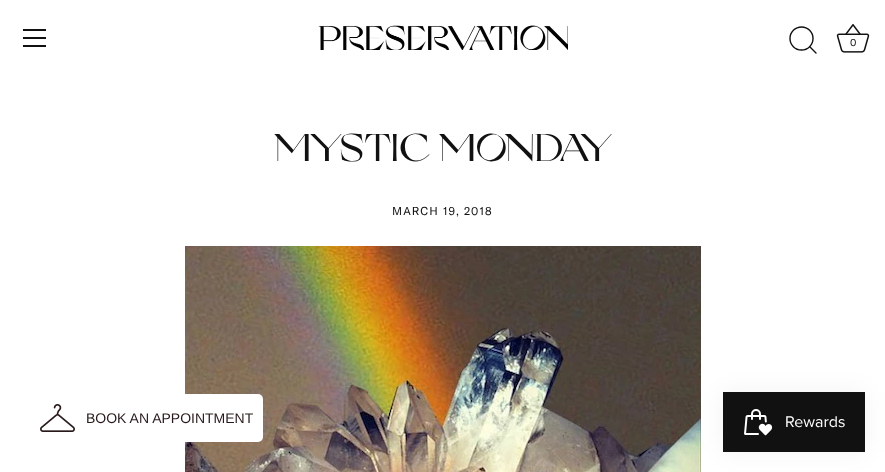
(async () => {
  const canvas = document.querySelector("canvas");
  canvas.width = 885;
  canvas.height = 472;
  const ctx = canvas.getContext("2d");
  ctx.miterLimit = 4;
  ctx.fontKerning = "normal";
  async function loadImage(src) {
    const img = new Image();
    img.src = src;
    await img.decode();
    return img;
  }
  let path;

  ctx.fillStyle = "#ffffff";
  ctx.fillRect(0, 0, 885, 472);
  for (const [x, y, w, h, color] of [
    [23, 29, 23, 2, "#111111"],
    [23, 37, 23, 2, "#111111"],
    [23, 45, 23, 2, "#111111"],
  ]) {
    ctx.fillStyle = color;
    ctx.fillRect(x, y, w, h);
  }
  ctx.drawImage(await loadImage("img/1.png"), 318, 25, 250, 25);
  ctx.beginPath();
  ctx.arc(801.5, 38.5, 11.5, 0, Math.PI * 2);
  ctx.strokeStyle = "#111111";
  ctx.lineWidth = 1.4;
  ctx.stroke();
  path = new Path2D("M816 53L810 47");
  ctx.lineCap = "round";
  ctx.lineJoin = "round";
  ctx.stroke(path);
  ctx.drawImage(await loadImage("img/2.png"), 836, 24, 34, 29);
  ctx.drawImage(await loadImage("img/3.png"), 185, 246, 516, 226);
  ctx.fillStyle = "#ffffff";
  ctx.beginPath();
  ctx.roundRect(30, 394, 233, 48, 5);
  ctx.fill();
  ctx.drawImage(await loadImage("img/4.png"), 40, 404, 35, 28);
  ctx.fillStyle = "rgba(0, 0, 0, 0.05)";
  ctx.filter = "blur(12.5px)";
  ctx.beginPath();
  ctx.rect(723, 392, 142, 60);
  ctx.fill();
  ctx.filter = "none";
  ctx.drawImage(await loadImage("img/5.png"), 723, 392, 142, 60);
  ctx.font = "10px GT America";
  ctx.fillStyle = "#111111";
  ctx.fillText("0", 850, 46);
  ctx.font = "39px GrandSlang";
  ctx.fillText("MYSTIC MONDAY", 274, 161);
  ctx.letterSpacing = "1.1px";
  ctx.font = "11.4px GT America";
  ctx.fillText("MARCH 19, 2018", 392, 215);
  ctx.letterSpacing = "0px";
  ctx.font = "14px Liberation Sans";
  ctx.fillStyle = "#281a1a";
  ctx.fillText("BOOK AN APPOINTMENT", 86, 423);
})();
